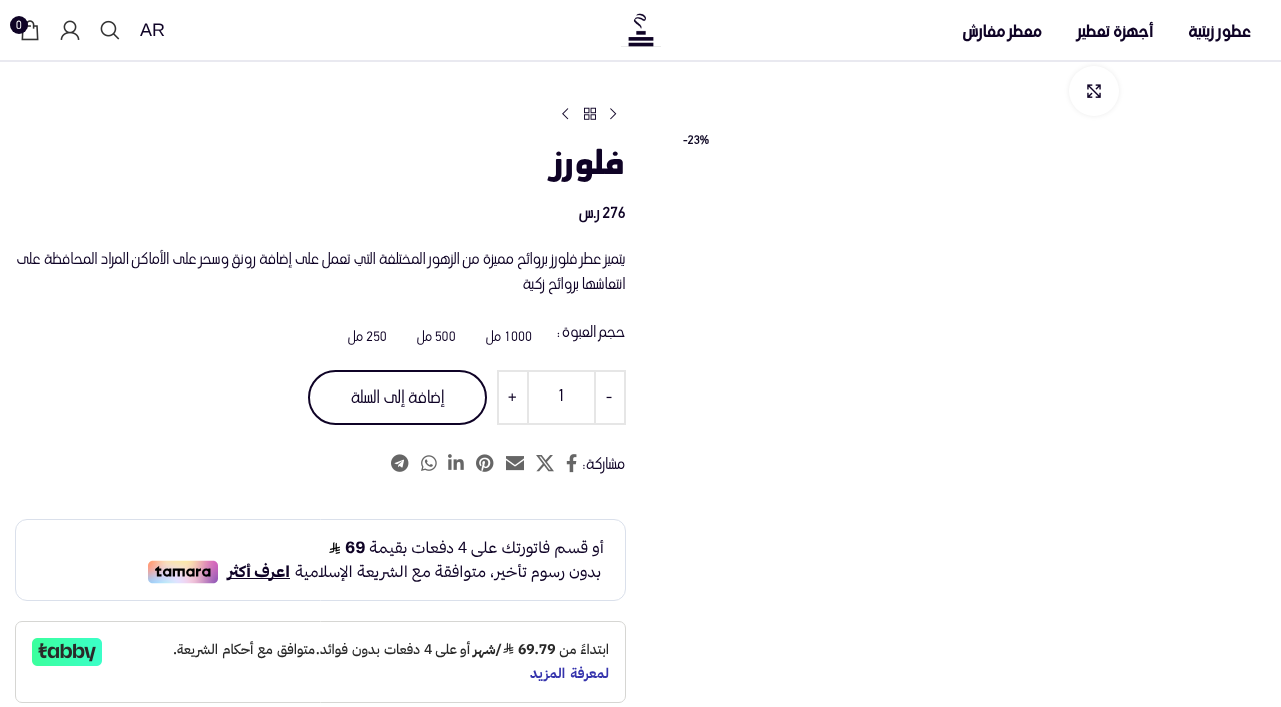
(async () => {
  const canvas = document.querySelector("canvas");
  canvas.width = 1281;
  canvas.height = 707;
  const ctx = canvas.getContext("2d");
  ctx.miterLimit = 4;
  ctx.fontKerning = "normal";
  async function loadImage(src) {
    const img = new Image();
    img.src = src;
    await img.decode();
    return img;
  }

  ctx.fillStyle = "#ffffff";
  ctx.fillRect(0, 0, 1281, 707);
  ctx.fillStyle = "rgba(0, 0, 0, 0.08)";
  ctx.filter = "blur(2.5px)";
  ctx.beginPath();
  ctx.roundRect(1069, 66, 50, 50, 25);
  ctx.fill();
  ctx.filter = "none";
  ctx.fillStyle = "#e9e9f0";
  ctx.fillRect(0, 60, 1281, 2);
  ctx.drawImage(await loadImage("img/1.png"), 621, 13, 40, 34);
  ctx.drawImage(await loadImage("img/2.png"), 100, 20, 20, 20);
  ctx.drawImage(await loadImage("img/3.png"), 60, 20, 20, 20);
  ctx.drawImage(await loadImage("img/4.png"), 21, 20, 18, 21);
  ctx.fillStyle = "#0f0326";
  ctx.beginPath();
  ctx.arc(19, 25, 9, 0, Math.PI * 2);
  ctx.fill();
  ctx.fillStyle = "#ffffff";
  ctx.beginPath();
  ctx.arc(1094, 91, 25, 0, Math.PI * 2);
  ctx.fill();
  ctx.drawImage(await loadImage("img/5.png"), 1087, 84, 14, 14);
  ctx.drawImage(await loadImage("img/6.png"), 610, 108, 7, 12);
  ctx.drawImage(await loadImage("img/7.png"), 584, 107, 12, 13);
  ctx.drawImage(await loadImage("img/8.png"), 562, 108, 7, 12);
  ctx.strokeStyle = "#e6e6e6";
  ctx.lineWidth = 2;
  ctx.strokeRect(595, 371, 30, 53);
  ctx.fillStyle = "#e6e6e6";
  ctx.fillRect(529, 370, 65, 2);
  ctx.fillRect(529, 423, 65, 2);
  ctx.strokeRect(498, 371, 30, 53);
  ctx.beginPath();
  ctx.roundRect(309, 371, 177, 53, 26.5);
  ctx.strokeStyle = "#0f0326";
  ctx.stroke();
  ctx.drawImage(await loadImage("img/9.png"), 566, 454, 11, 19);
  ctx.drawImage(await loadImage("img/10.png"), 536, 455, 18, 17);
  ctx.drawImage(await loadImage("img/11.png"), 506, 456, 18, 15);
  ctx.drawImage(await loadImage("img/12.png"), 476, 454, 18, 18);
  ctx.drawImage(await loadImage("img/13.png"), 448, 454, 16, 16);
  ctx.drawImage(await loadImage("img/14.png"), 421, 455, 16, 16);
  ctx.drawImage(await loadImage("img/15.png"), 391, 454, 18, 18);
  ctx.beginPath();
  ctx.roundRect(15.5, 519.5, 610, 81, 11.5);
  ctx.strokeStyle = "#dae0eb";
  ctx.lineWidth = 1;
  ctx.stroke();
  ctx.drawImage(await loadImage("img/16.png"), 329, 542, 11, 12);
  ctx.fillStyle = "#0f0326";
  ctx.fillRect(227, 578, 63, 1);
  ctx.drawImage(await loadImage("img/17.png"), 148, 560, 70, 24);
  ctx.beginPath();
  ctx.roundRect(15.5, 621.5, 610, 81, 6.5);
  ctx.strokeStyle = "#d6d6d3";
  ctx.stroke();
  ctx.drawImage(await loadImage("img/18.png"), 503, 642, 11, 12);
  ctx.drawImage(await loadImage("img/19.png"), 32, 638, 70, 28);
  ctx.direction = "rtl";
  ctx.font = "bold 18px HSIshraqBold";
  for (const [text, x, y] of [
    ["عطور زيتية", 1251, 37],
    ["أجهزة تعطير", 1153, 37],
    ["معطر مفارش", 1042, 37],
  ]) {
    ctx.fillText(text, x, y);
  }
  ctx.direction = "ltr";
  ctx.font = "18px Liberation Sans";
  ctx.fillText("AR", 140, 36);
  ctx.font = "300 14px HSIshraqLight";
  ctx.fillStyle = "#ffffff";
  ctx.fillText("0", 16, 29);
  ctx.font = "bold 14px HSIshraqLight";
  ctx.fillStyle = "#110a26";
  ctx.fillText("-23%", 683, 144);
  ctx.direction = "rtl";
  ctx.font = "800 32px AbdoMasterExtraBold";
  ctx.fillStyle = "#0f0326";
  ctx.fillText("فلورز", 625, 174);
  ctx.direction = "ltr";
  ctx.font = "bold 18px HSIshraqLight";
  ctx.fillText("276", 602, 218);
  ctx.direction = "rtl";
  ctx.fillText("ر.س", 599, 218);
  ctx.font = "300 18px HSIshraqLight";
  for (const [text, x, y] of [
    ["يتميز عطر فلورز بروائح مميزة من الزهور المختلفة التي تعمل على إضافة رونق وسحر على الأماكن المراد المحافظة على", 625, 264],
    ["انتعاشها بروائح زكية", 625, 289],
    ["حجم العبوة", 625, 337],
  ]) {
    ctx.fillText(text, x, y);
  }
  ctx.direction = "ltr";
  ctx.fillText(":", 557, 337);
  ctx.font = "300 16px HSIshraqLight";
  ctx.fillText("1000", 504, 341);
  ctx.direction = "rtl";
  ctx.fillText("مل", 501, 341);
  ctx.direction = "ltr";
  ctx.fillText("500", 435, 341);
  ctx.direction = "rtl";
  ctx.fillText("مل", 432, 341);
  ctx.direction = "ltr";
  ctx.fillText("250", 366, 341);
  ctx.direction = "rtl";
  ctx.fillText("مل", 363, 341);
  ctx.direction = "ltr";
  ctx.font = "300 20px HSIshraqLight";
  for (const [text, x, y] of [
    ["-", 606, 402],
    ["1", 557, 401],
    ["+", 507, 402],
  ]) {
    ctx.fillText(text, x, y);
  }
  ctx.direction = "rtl";
  ctx.fillText("إضافة إلى السلة", 444, 403);
  ctx.font = "300 18px HSIshraqLight";
  ctx.fillText("مشاركة:", 625, 469);
  ctx.font = "16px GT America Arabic";
  ctx.fillText("أو قسم فاتورتك على", 604, 553);
  ctx.direction = "ltr";
  ctx.fillText("4", 458, 553);
  ctx.direction = "rtl";
  ctx.fillText("دفعات بقيمة", 454, 553);
  ctx.direction = "ltr";
  ctx.font = "bold 16px GT America Arabic";
  ctx.fillText("69", 345, 553);
  ctx.direction = "rtl";
  ctx.font = "16px GT America Arabic";
  ctx.fillText("بدون رسوم تأخير، متوافقة مع الشريعة الإسلامية", 601, 577);
  ctx.font = "bold 16px GT America Arabic";
  ctx.fillText("اعرف أكثر", 290, 577);
  ctx.letterSpacing = "-0.1px";
  ctx.wordSpacing = "1px";
  ctx.font = "500 14px IBM Plex Sans Arabic";
  ctx.fillStyle = "#292929";
  ctx.fillText("ابتداءً من", 609, 654);
  ctx.wordSpacing = "0px";
  ctx.direction = "ltr";
  ctx.font = "bold 14px IBM Plex Sans Arabic";
  ctx.fillText("69.79", 518, 654);
  ctx.direction = "rtl";
  ctx.fillText("/شهر", 502, 654);
  ctx.font = "500 14px IBM Plex Sans Arabic";
  ctx.fillText("أو على", 470, 654);
  ctx.direction = "ltr";
  ctx.fillText("4", 424, 654);
  ctx.wordSpacing = "1px";
  ctx.direction = "rtl";
  ctx.fillText("دفعات بدون فوائد.", 420, 654);
  ctx.fillText("متوافق مع أحكام الشريعة.", 315, 654);
  ctx.wordSpacing = "2px";
  ctx.font = "bold 14px IBM Plex Sans Arabic";
  ctx.fillStyle = "#3533ac";
  ctx.fillText("لمعرفة المزيد", 609, 678);
})();
